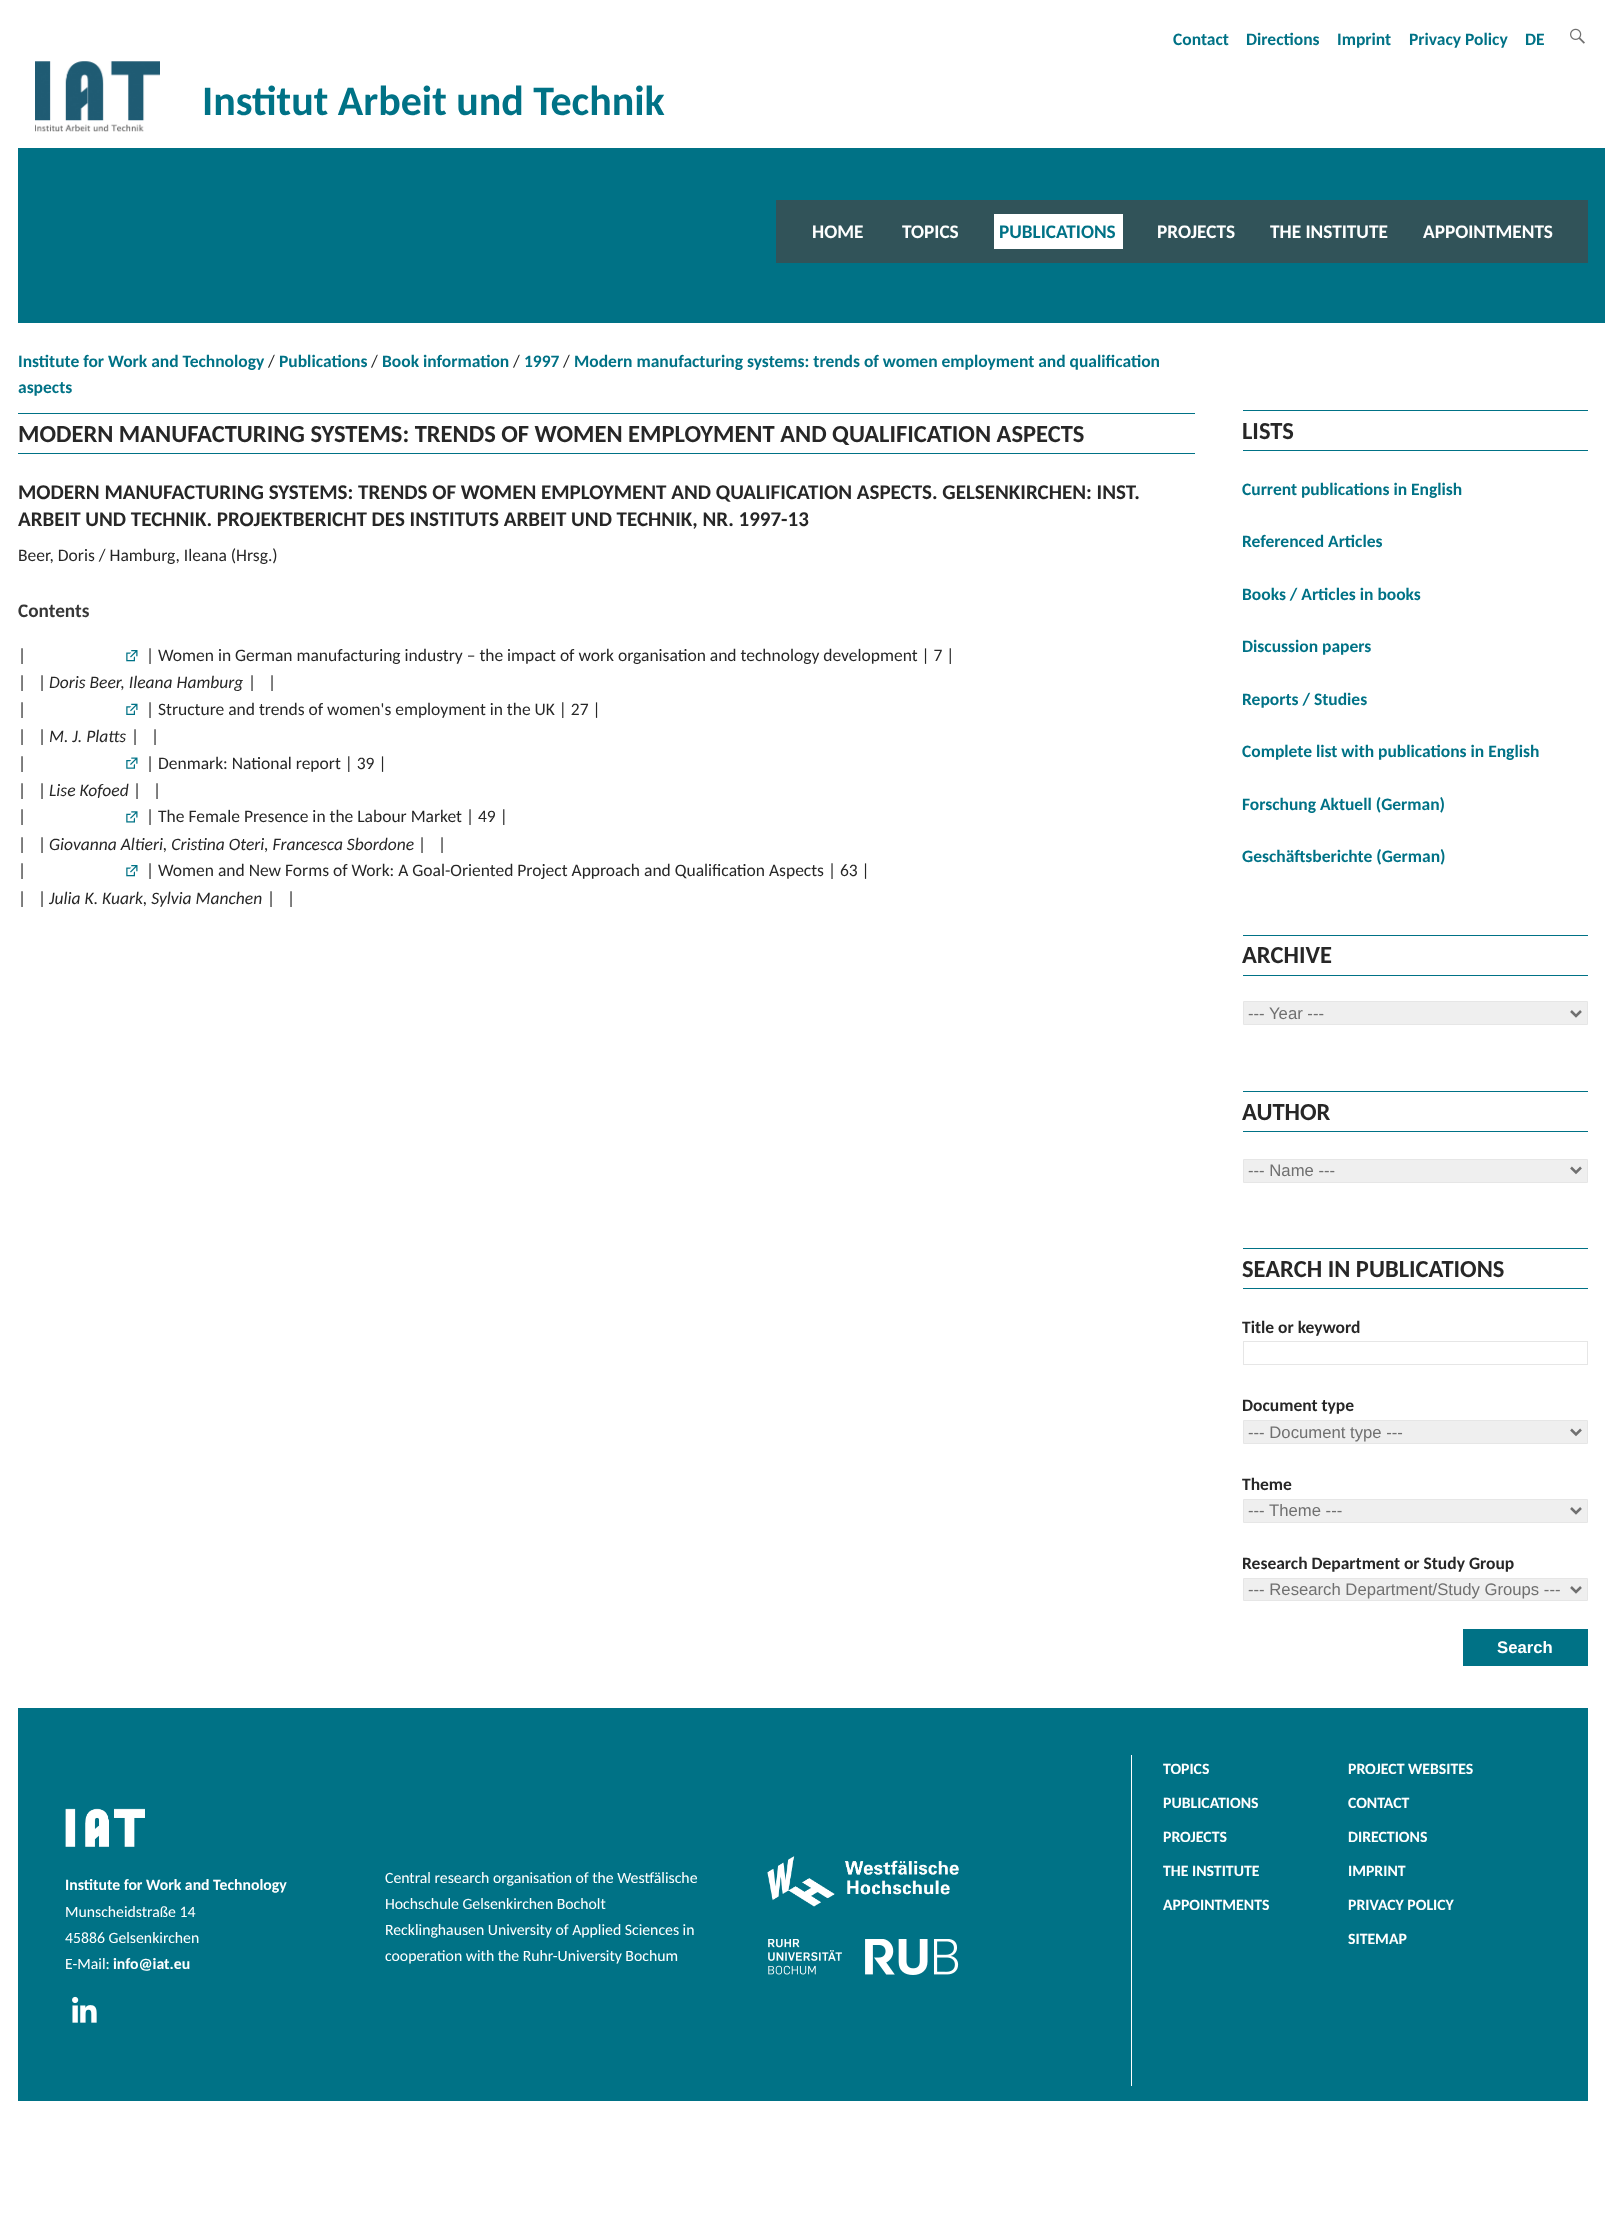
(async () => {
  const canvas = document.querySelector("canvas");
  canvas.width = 1605;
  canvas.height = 2217;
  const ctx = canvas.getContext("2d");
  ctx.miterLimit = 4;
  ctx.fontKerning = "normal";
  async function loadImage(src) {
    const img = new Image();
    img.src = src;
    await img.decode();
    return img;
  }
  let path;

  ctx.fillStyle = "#ffffff";
  ctx.fillRect(0, 0, 1605, 2217);
  ctx.drawImage(await loadImage("img/1.png"), 1570, 28, 15, 16);
  ctx.drawImage(await loadImage("img/2.png"), 35, 61, 125, 71);
  for (const [x, y, w, h, color] of [
    [18, 148, 1587, 175, "#007286"],
    [776, 200, 812, 63, "#315359"],
    [994, 214, 129, 35, "#ffffff"],
    [18, 413, 1177, 1, "#007286"],
    [18, 453, 1177, 1, "#007286"],
  ]) {
    ctx.fillStyle = color;
    ctx.fillRect(x, y, w, h);
  }
  ctx.drawImage(await loadImage("img/3.png"), 126, 650, 12, 12);
  ctx.drawImage(await loadImage("img/4.png"), 126, 703, 12, 12);
  ctx.drawImage(await loadImage("img/5.png"), 126, 757, 12, 12);
  ctx.drawImage(await loadImage("img/6.png"), 126, 811, 12, 12);
  ctx.drawImage(await loadImage("img/3.png"), 126, 865, 12, 12);
  for (const [x, y, w, h, color] of [
    [1243, 410, 345, 1, "#007286"],
    [1243, 450, 345, 1, "#007286"],
    [1243, 935, 345, 1, "#007286"],
    [1243, 975, 345, 1, "#007286"],
  ]) {
    ctx.fillStyle = color;
    ctx.fillRect(x, y, w, h);
  }
  ctx.fillStyle = "#efefef";
  ctx.beginPath();
  ctx.rect(1243.5, 1001.5, 344, 23);
  ctx.fill();
  ctx.strokeStyle = "#e6e6e6";
  ctx.stroke();
  path = new Path2D("M1571 1011L1576 1016L1581 1011");
  ctx.strokeStyle = "#707070";
  ctx.lineWidth = 2.5;
  ctx.stroke(path);
  ctx.fillStyle = "#007286";
  ctx.fillRect(1243, 1091, 345, 1);
  ctx.fillRect(1243, 1131, 345, 1);
  ctx.fillStyle = "#efefef";
  ctx.beginPath();
  ctx.rect(1243.5, 1159.5, 344, 23);
  ctx.fill();
  ctx.strokeStyle = "#e6e6e6";
  ctx.lineWidth = 1;
  ctx.stroke();
  path = new Path2D("M1571 1167.5L1576 1172.5L1581 1167.5");
  ctx.strokeStyle = "#707070";
  ctx.lineWidth = 2.5;
  ctx.stroke(path);
  ctx.fillStyle = "#007286";
  ctx.fillRect(1243, 1248, 345, 1);
  ctx.fillRect(1243, 1288, 345, 1);
  ctx.strokeStyle = "#e6e6e6";
  ctx.lineWidth = 1;
  ctx.strokeRect(1243.5, 1341.5, 344, 23);
  ctx.fillStyle = "#efefef";
  ctx.beginPath();
  ctx.rect(1243.5, 1420.5, 344, 23);
  ctx.fill();
  ctx.stroke();
  path = new Path2D("M1571 1429.5L1576 1434.5L1581 1429.5");
  ctx.strokeStyle = "#707070";
  ctx.lineWidth = 2.5;
  ctx.stroke(path);
  ctx.beginPath();
  ctx.rect(1243.5, 1499.5, 344, 23);
  ctx.fill();
  ctx.strokeStyle = "#e6e6e6";
  ctx.lineWidth = 1;
  ctx.stroke();
  path = new Path2D("M1571 1508L1576 1513L1581 1508");
  ctx.strokeStyle = "#707070";
  ctx.lineWidth = 2.5;
  ctx.stroke(path);
  ctx.beginPath();
  ctx.rect(1243.5, 1578.5, 344, 22);
  ctx.fill();
  ctx.strokeStyle = "#e6e6e6";
  ctx.lineWidth = 1;
  ctx.stroke();
  path = new Path2D("M1571 1587L1576 1592L1581 1587");
  ctx.strokeStyle = "#707070";
  ctx.lineWidth = 2.5;
  ctx.stroke(path);
  ctx.fillStyle = "#007286";
  ctx.fillRect(1463, 1629, 125, 37);
  ctx.fillRect(18, 1708, 1570, 393);
  ctx.drawImage(await loadImage("img/7.png"), 65, 1808, 80, 39);
  ctx.drawImage(await loadImage("img/8.png"), 72, 1996, 25, 27);
  ctx.drawImage(await loadImage("img/9.png"), 767, 1856, 192, 51);
  ctx.drawImage(await loadImage("img/10.png"), 768, 1939, 191, 36);
  ctx.fillStyle = "#ffffff";
  ctx.fillRect(1131, 1755, 1, 331);
  ctx.font = "bold 17.5px Carlito";
  ctx.fillStyle = "#007286";
  for (const [text, x, y] of [
    ["Contact", 1173, 45],
    ["Directions", 1246, 45],
    ["Imprint", 1337, 45],
    ["Privacy Policy", 1409, 45],
    ["DE", 1525, 45],
  ]) {
    ctx.fillText(text, x, y);
  }
  ctx.font = "bold 42px Carlito";
  ctx.fillText("Institut Arbeit und Technik", 202, 115);
  ctx.font = "bold 19.25px Carlito";
  ctx.fillStyle = "#ffffff";
  ctx.fillText("HOME", 812, 238);
  ctx.fillText("TOPICS", 902, 238);
  ctx.fillStyle = "#007286";
  ctx.fillText("PUBLICATIONS", 999, 238);
  ctx.fillStyle = "#ffffff";
  for (const [text, x, y] of [
    ["PROJECTS", 1157, 238],
    ["THE INSTITUTE", 1270, 238],
    ["APPOINTMENTS", 1423, 238],
  ]) {
    ctx.fillText(text, x, y);
  }
  ctx.font = "bold 17.5px Carlito";
  ctx.fillStyle = "#007286";
  ctx.fillText("Institute for Work and Technology", 18, 367);
  ctx.font = "17.5px Carlito";
  ctx.fillStyle = "#272727";
  ctx.fillText("/", 268, 367);
  ctx.font = "bold 17.5px Carlito";
  ctx.fillStyle = "#007286";
  ctx.fillText("Publications", 279, 367);
  ctx.font = "17.5px Carlito";
  ctx.fillStyle = "#272727";
  ctx.fillText("/", 371, 367);
  ctx.font = "bold 17.5px Carlito";
  ctx.fillStyle = "#007286";
  ctx.fillText("Book information", 382, 367);
  ctx.font = "17.5px Carlito";
  ctx.fillStyle = "#272727";
  ctx.fillText("/", 513, 367);
  ctx.font = "bold 17.5px Carlito";
  ctx.fillStyle = "#007286";
  ctx.fillText("1997", 524, 367);
  ctx.font = "17.5px Carlito";
  ctx.fillStyle = "#272727";
  ctx.fillText("/", 563, 367);
  ctx.font = "bold 17.5px Carlito";
  ctx.fillStyle = "#007286";
  ctx.fillText("Modern manufacturing systems: trends of women employment and qualification", 574, 367);
  ctx.fillText("aspects", 18, 393);
  ctx.font = "bold 24.5px Carlito";
  ctx.fillStyle = "#272727";
  ctx.fillText("MODERN MANUFACTURING SYSTEMS: TRENDS OF WOMEN EMPLOYMENT AND QUALIFICATION ASPECTS", 18, 442);
  ctx.font = "bold 21px Carlito";
  ctx.fillText("MODERN MANUFACTURING SYSTEMS: TRENDS OF WOMEN EMPLOYMENT AND QUALIFICATION ASPECTS. GELSENKIRCHEN: INST.", 18, 499);
  ctx.fillText("ARBEIT UND TECHNIK. PROJEKTBERICHT DES INSTITUTS ARBEIT UND TECHNIK, NR. 1997-13", 18, 526);
  ctx.font = "17.5px Carlito";
  ctx.fillText("Beer, Doris / Hamburg, Ileana (Hrsg.)", 18, 561);
  ctx.font = "bold 19.25px Carlito";
  ctx.fillStyle = "#373737";
  ctx.fillText("Contents", 18, 617);
  ctx.font = "17.5px Carlito";
  ctx.fillStyle = "#272727";
  for (const [text, x, y] of [
    ["|", 18, 661],
    ["| Women in German manufacturing industry – the impact of work organisation and technology development | 7 |", 146, 661],
    ["|   |", 18, 688],
  ]) {
    ctx.fillText(text, x, y);
  }
  ctx.font = "italic 17.5px Carlito";
  ctx.fillText("Doris Beer, Ileana Hamburg", 49, 688);
  ctx.font = "17.5px Carlito";
  for (const [text, x, y] of [
    ["|   |", 248, 688],
    ["|", 18, 715],
    ["| Structure and trends of women's employment in the UK | 27 |", 146, 715],
    ["|   |", 18, 742],
  ]) {
    ctx.fillText(text, x, y);
  }
  ctx.font = "italic 17.5px Carlito";
  ctx.fillText("M. J. Platts", 49, 742);
  ctx.font = "17.5px Carlito";
  for (const [text, x, y] of [
    ["|   |", 131, 742],
    ["|", 18, 769],
    ["| Denmark: National report | 39 |", 146, 769],
    ["|   |", 18, 796],
  ]) {
    ctx.fillText(text, x, y);
  }
  ctx.font = "italic 17.5px Carlito";
  ctx.fillText("Lise Kofoed", 49, 796);
  ctx.font = "17.5px Carlito";
  for (const [text, x, y] of [
    ["|   |", 133, 796],
    ["|", 18, 822],
    ["| The Female Presence in the Labour Market | 49 |", 146, 822],
    ["|   |", 18, 850],
  ]) {
    ctx.fillText(text, x, y);
  }
  ctx.font = "italic 17.5px Carlito";
  ctx.fillText("Giovanna Altieri, Cristina Oteri, Francesca Sbordone", 49, 850);
  ctx.font = "17.5px Carlito";
  for (const [text, x, y] of [
    ["|   |", 418, 850],
    ["|", 18, 876],
    ["| Women and New Forms of Work: A Goal-Oriented Project Approach and Qualification Aspects | 63 |", 146, 876],
    ["|   |", 18, 904],
  ]) {
    ctx.fillText(text, x, y);
  }
  ctx.font = "italic 17.5px Carlito";
  ctx.fillText("Julia K. Kuark, Sylvia Manchen", 49, 904);
  ctx.font = "17.5px Carlito";
  ctx.fillText("|   |", 267, 904);
  ctx.font = "bold 24.5px Carlito";
  ctx.fillText("LISTS", 1242, 439);
  ctx.font = "bold 17.5px Carlito";
  ctx.fillStyle = "#007286";
  for (const [text, x, y] of [
    ["Current publications in English", 1242, 495],
    ["Referenced Articles", 1242, 547],
    ["Books / Articles in books", 1242, 600],
    ["Discussion papers", 1242, 652],
    ["Reports / Studies", 1242, 705],
    ["Complete list with publications in English", 1242, 757],
    ["Forschung Aktuell (German)", 1242, 810],
    ["Geschäftsberichte (German)", 1242, 862],
  ]) {
    ctx.fillText(text, x, y);
  }
  ctx.font = "bold 24.5px Carlito";
  ctx.fillStyle = "#272727";
  ctx.fillText("ARCHIVE", 1242, 963);
  ctx.font = "16.7px Liberation Sans";
  ctx.fillStyle = "#707070";
  ctx.fillText("--- Year ---", 1248, 1019);
  ctx.font = "bold 24.5px Carlito";
  ctx.fillStyle = "#272727";
  ctx.fillText("AUTHOR", 1242, 1120);
  ctx.font = "16.7px Liberation Sans";
  ctx.fillStyle = "#707070";
  ctx.fillText("--- Name ---", 1248, 1176);
  ctx.font = "bold 24.5px Carlito";
  ctx.fillStyle = "#272727";
  ctx.fillText("SEARCH IN PUBLICATIONS", 1242, 1277);
  ctx.font = "bold 17.5px Carlito";
  ctx.fillText("Title or keyword", 1242, 1333);
  ctx.fillText("Document type", 1242, 1411);
  ctx.font = "16.7px Liberation Sans";
  ctx.fillStyle = "#707070";
  ctx.fillText("--- Document type ---", 1248, 1438);
  ctx.font = "bold 17.5px Carlito";
  ctx.fillStyle = "#272727";
  ctx.fillText("Theme", 1242, 1490);
  ctx.font = "16.7px Liberation Sans";
  ctx.fillStyle = "#707070";
  ctx.fillText("--- Theme ---", 1248, 1516);
  ctx.font = "bold 17.5px Carlito";
  ctx.fillStyle = "#272727";
  ctx.fillText("Research Department or Study Group", 1242, 1569);
  ctx.font = "16.7px Liberation Sans";
  ctx.fillStyle = "#707070";
  ctx.fillText("--- Research Department/Study Groups ---", 1248, 1595);
  ctx.font = "bold 16.7px Liberation Sans";
  ctx.fillStyle = "#ffffff";
  ctx.fillText("Search", 1497, 1653);
  ctx.font = "bold 15.75px Carlito";
  ctx.fillText("Institute for Work and Technology", 65, 1890);
  ctx.font = "15.75px Carlito";
  for (const [text, x, y] of [
    ["Munscheidstraße 14", 65, 1917],
    ["45886 Gelsenkirchen", 65, 1943],
    ["E-Mail:", 65, 1969],
  ]) {
    ctx.fillText(text, x, y);
  }
  ctx.font = "bold 15.75px Carlito";
  ctx.fillText("info@iat.eu", 113, 1969);
  ctx.font = "15.75px Carlito";
  for (const [text, x, y] of [
    ["Central research organisation of the Westfälische", 385, 1883],
    ["Hochschule Gelsenkirchen Bocholt", 385, 1909],
    ["Recklinghausen University of Applied Sciences in", 385, 1935],
    ["cooperation with the Ruhr-University Bochum", 385, 1961],
  ]) {
    ctx.fillText(text, x, y);
  }
  ctx.font = "bold 15.75px Carlito";
  for (const [text, x, y] of [
    ["TOPICS", 1163, 1774],
    ["PUBLICATIONS", 1163, 1808],
    ["PROJECTS", 1163, 1842],
    ["THE INSTITUTE", 1163, 1876],
    ["APPOINTMENTS", 1163, 1910],
    ["PROJECT WEBSITES", 1348, 1774],
    ["CONTACT", 1348, 1808],
    ["DIRECTIONS", 1348, 1842],
    ["IMPRINT", 1348, 1876],
    ["PRIVACY POLICY", 1348, 1910],
    ["SITEMAP", 1348, 1944],
  ]) {
    ctx.fillText(text, x, y);
  }
})();
